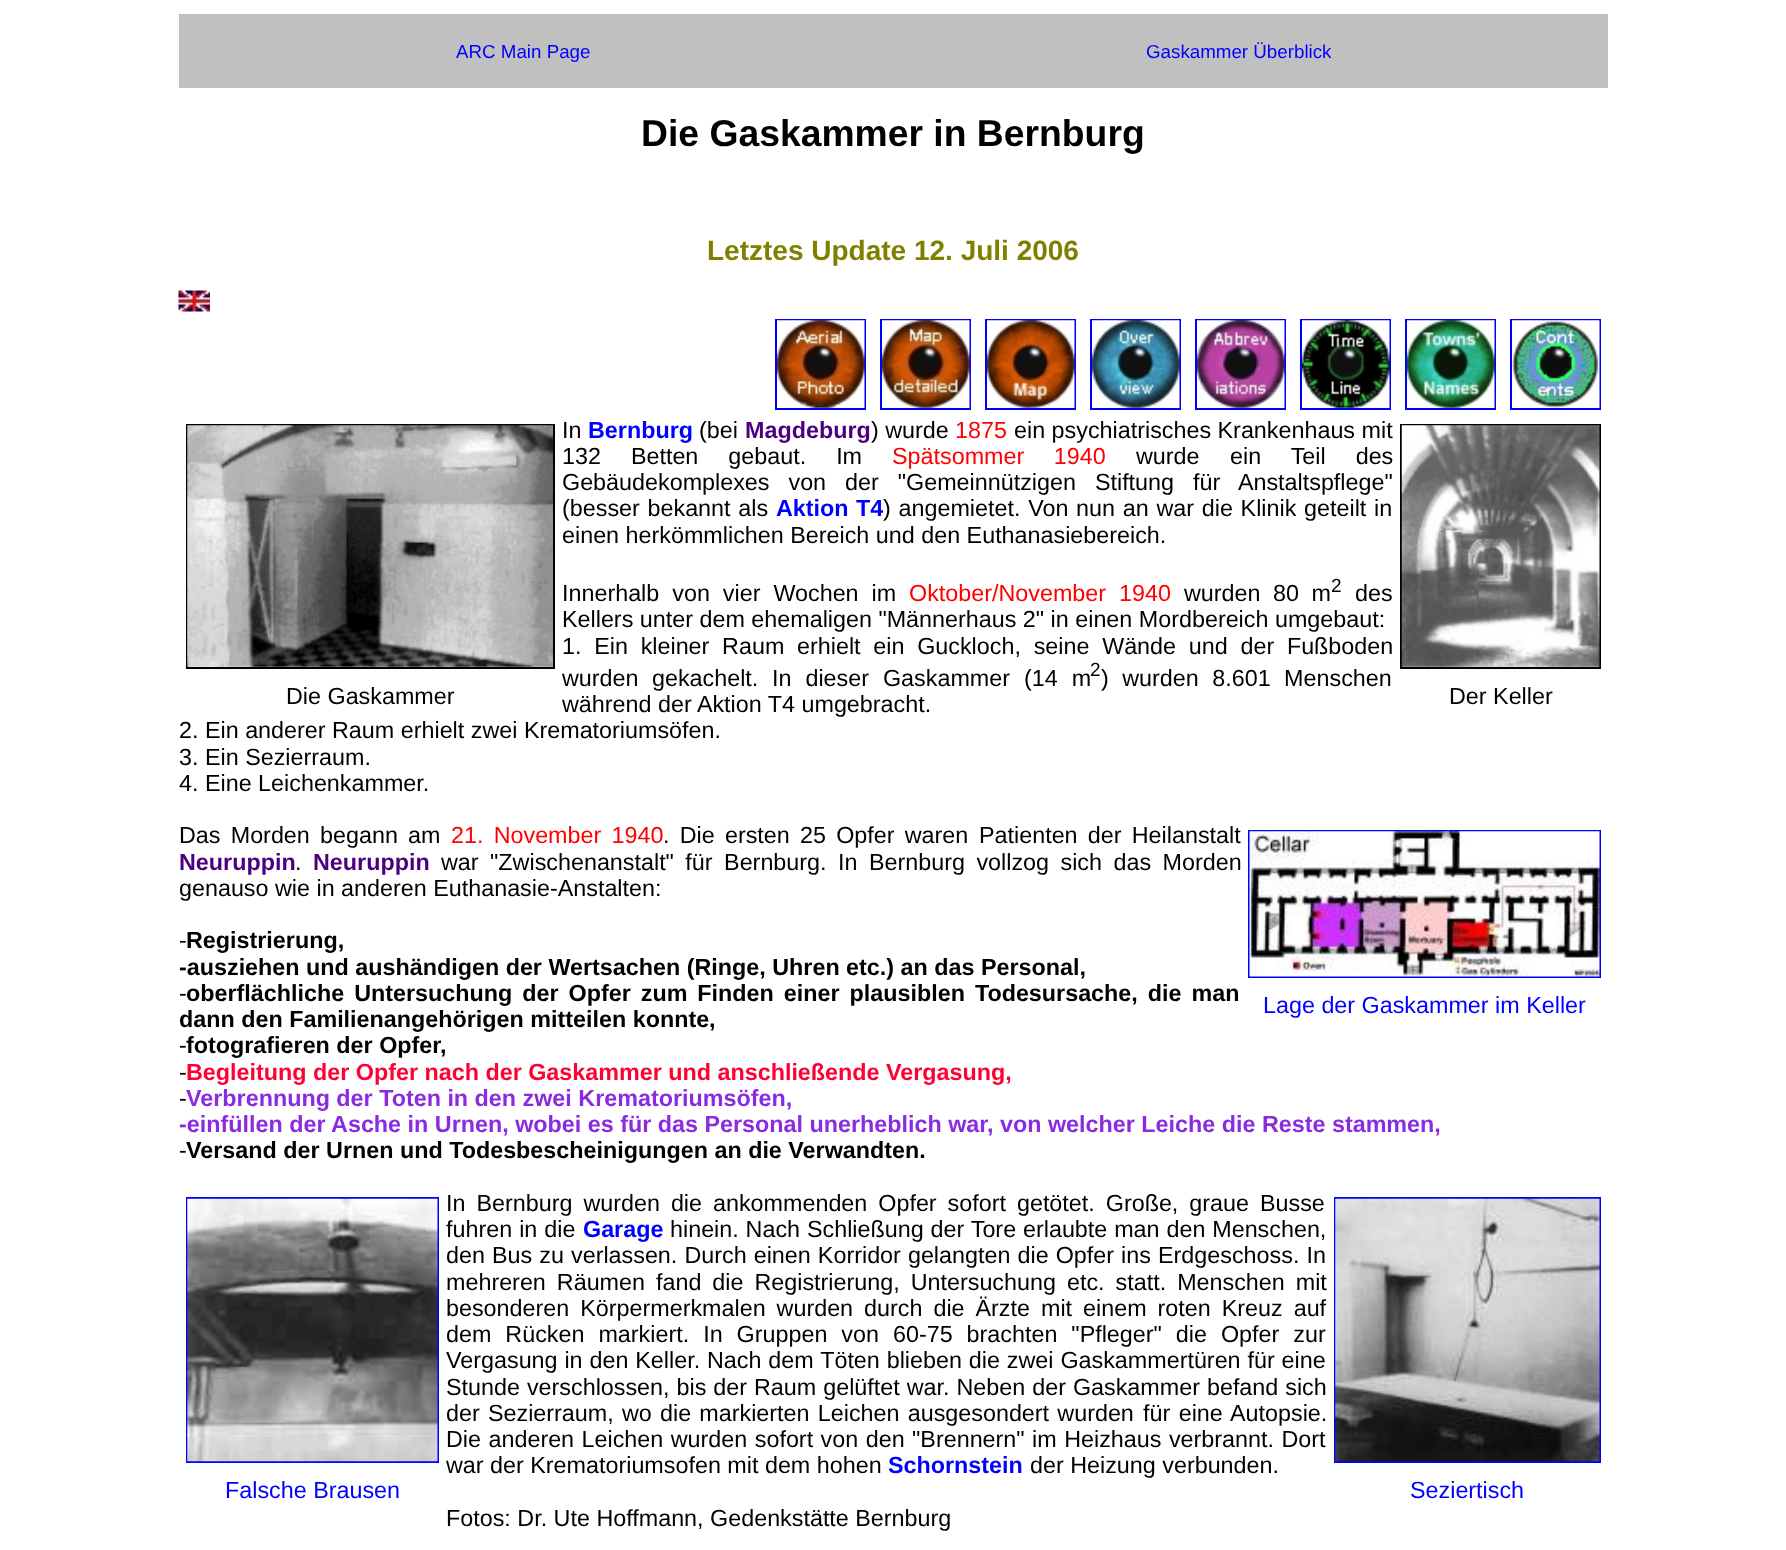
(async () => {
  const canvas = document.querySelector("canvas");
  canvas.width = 1786;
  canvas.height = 1550;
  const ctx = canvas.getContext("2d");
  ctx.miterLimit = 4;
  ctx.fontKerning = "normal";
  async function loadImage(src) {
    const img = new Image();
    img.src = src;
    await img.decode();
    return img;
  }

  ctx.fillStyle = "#ffffff";
  ctx.fillRect(0, 0, 1786, 1550);
  ctx.fillStyle = "#c0c0c0";
  ctx.fillRect(179, 14, 1429, 74);
  ctx.drawImage(await loadImage("img/1.png"), 178, 290, 32, 22);
  ctx.strokeStyle = "#0000ff";
  ctx.lineWidth = 2;
  ctx.strokeRect(776, 320, 89, 89);
  ctx.drawImage(await loadImage("img/2.png"), 777, 320, 88, 88);
  ctx.strokeRect(881, 320, 89, 89);
  ctx.drawImage(await loadImage("img/3.png"), 882, 320, 88, 88);
  ctx.strokeRect(986, 320, 89, 89);
  ctx.drawImage(await loadImage("img/4.png"), 987, 320, 88, 88);
  ctx.strokeRect(1091, 320, 89, 89);
  ctx.drawImage(await loadImage("img/5.png"), 1092, 320, 88, 88);
  ctx.strokeRect(1196, 320, 89, 89);
  ctx.drawImage(await loadImage("img/6.png"), 1197, 320, 88, 88);
  ctx.strokeRect(1301, 320, 89, 89);
  ctx.drawImage(await loadImage("img/7.png"), 1302, 320, 88, 88);
  ctx.strokeRect(1406, 320, 89, 89);
  ctx.drawImage(await loadImage("img/8.png"), 1407, 320, 88, 88);
  ctx.strokeRect(1511, 320, 89, 89);
  ctx.drawImage(await loadImage("img/9.png"), 1512, 320, 88, 88);
  ctx.strokeStyle = "#000000";
  ctx.strokeRect(187, 425, 367, 243);
  ctx.drawImage(await loadImage("img/10.png"), 187, 425, 366, 242);
  ctx.strokeRect(1401, 425, 199, 243);
  ctx.drawImage(await loadImage("img/11.png"), 1401, 425, 199, 242);
  ctx.strokeStyle = "#0000ff";
  ctx.strokeRect(1249, 831, 351, 146);
  ctx.drawImage(await loadImage("img/12.png"), 1249, 831, 351, 146);
  ctx.strokeRect(187, 1198, 251, 264);
  ctx.drawImage(await loadImage("img/13.png"), 187, 1198, 251, 264);
  ctx.strokeRect(1335, 1198, 265, 264);
  ctx.drawImage(await loadImage("img/14.png"), 1335, 1198, 265, 264);
  ctx.font = "18.75px Liberation Sans";
  ctx.fillStyle = "#0000ff";
  ctx.fillText("ARC Main Page", 456, 58);
  ctx.fillText("Gaskammer Überblick", 1146, 58);
  ctx.font = "bold 37.3px Liberation Sans";
  ctx.fillStyle = "#000000";
  ctx.fillText("Die Gaskammer in Bernburg", 641, 146);
  ctx.font = "bold 28px Liberation Sans";
  ctx.fillStyle = "#808000";
  ctx.fillText("Letztes Update 12. Juli 2006", 707, 260);
  ctx.font = "23.33px Liberation Sans";
  ctx.fillStyle = "#000000";
  ctx.fillText("In", 562, 438);
  ctx.font = "bold 23.33px Liberation Sans";
  ctx.fillStyle = "#0000ff";
  ctx.fillText("Bernburg", 588, 438);
  ctx.font = "23.33px Liberation Sans";
  ctx.fillStyle = "#000000";
  ctx.fillText("(bei", 699, 438);
  ctx.font = "bold 23.33px Liberation Sans";
  ctx.fillStyle = "#4b0082";
  ctx.fillText("Magdeburg", 745, 438);
  ctx.font = "23.33px Liberation Sans";
  ctx.fillStyle = "#000000";
  ctx.fillText(") wurde", 871, 438);
  ctx.fillStyle = "#ff0000";
  ctx.fillText("1875", 955, 438);
  ctx.fillStyle = "#000000";
  ctx.fillText("ein psychiatrisches Krankenhaus mit", 1014, 438);
  ctx.wordSpacing = "23.5px";
  ctx.fillText("132 Betten gebaut. Im", 562, 464);
  ctx.wordSpacing = "23px";
  ctx.fillStyle = "#ff0000";
  ctx.fillText("Spätsommer 1940", 892, 464);
  ctx.wordSpacing = "0px";
  ctx.fillStyle = "#000000";
  ctx.fillText("wurde", 1136, 464);
  ctx.wordSpacing = "23.5px";
  ctx.fillText("ein Teil des", 1230, 464);
  ctx.wordSpacing = "12.5px";
  ctx.fillText("Gebäudekomplexes von der \"Gemeinnützigen Stiftung für Anstaltspflege\"", 562, 490);
  ctx.wordSpacing = "1.25px";
  ctx.fillText("(besser bekannt als", 562, 516);
  ctx.wordSpacing = "1px";
  ctx.font = "bold 23.33px Liberation Sans";
  ctx.fillStyle = "#0000ff";
  ctx.fillText("Aktion T4", 776, 516);
  ctx.wordSpacing = "1.25px";
  ctx.font = "23.33px Liberation Sans";
  ctx.fillStyle = "#000000";
  ctx.fillText(") angemietet. Von nun an war die Klinik geteilt in", 883, 516);
  ctx.wordSpacing = "0px";
  ctx.fillText("einen herkömmlichen Bereich und den Euthanasiebereich.", 562, 543);
  ctx.wordSpacing = "6.5px";
  ctx.fillText("Innerhalb von vier Wochen im", 562, 601);
  ctx.fillStyle = "#ff0000";
  ctx.fillText("Oktober/November 1940", 909, 601);
  ctx.wordSpacing = "6px";
  ctx.fillStyle = "#000000";
  ctx.fillText("wurden 80 m", 1184, 601);
  ctx.wordSpacing = "0px";
  ctx.font = "19px Liberation Sans";
  ctx.fillText("2", 1331, 592);
  ctx.font = "23.33px Liberation Sans";
  ctx.fillText("des", 1355, 601);
  ctx.fillText("Kellers unter dem ehemaligen \"Männerhaus 2\" in einen Mordbereich umgebaut:", 562, 627);
  ctx.wordSpacing = "6.25px";
  ctx.fillText("1. Ein kleiner Raum erhielt ein Guckloch, seine Wände und der Fußboden", 562, 654);
  ctx.wordSpacing = "7px";
  ctx.fillText("wurden gekachelt.", 562, 686);
  ctx.wordSpacing = "7.5px";
  ctx.fillText("In dieser Gaskammer (14 m", 772, 686);
  ctx.wordSpacing = "0px";
  ctx.font = "19px Liberation Sans";
  ctx.fillText("2", 1090, 676);
  ctx.wordSpacing = "7px";
  ctx.font = "23.33px Liberation Sans";
  ctx.fillText(") wurden 8.601 Menschen", 1101, 686);
  ctx.wordSpacing = "0px";
  for (const [text, x, y] of [
    ["Die Gaskammer", 286, 704],
    ["während der Aktion T4 umgebracht.", 562, 712],
    ["Der Keller", 1449, 704],
    ["2. Ein anderer Raum erhielt zwei Krematoriumsöfen.", 179, 738],
    ["3. Ein Sezierraum.", 179, 765],
    ["4. Eine Leichenkammer.", 179, 791],
  ]) {
    ctx.fillText(text, x, y);
  }
  ctx.wordSpacing = "3.75px";
  ctx.fillText("Das Morden begann am", 179, 843);
  ctx.fillStyle = "#ff0000";
  ctx.fillText("21. November 1940", 451, 843);
  ctx.fillStyle = "#000000";
  ctx.fillText(". Die ersten 25 Opfer waren", 663, 843);
  ctx.fillText("Patienten der Heilanstalt", 979, 843);
  ctx.wordSpacing = "0px";
  ctx.font = "bold 23.33px Liberation Sans";
  ctx.fillStyle = "#4b0082";
  ctx.fillText("Neuruppin", 179, 870);
  ctx.font = "23.33px Liberation Sans";
  ctx.fillStyle = "#000000";
  ctx.fillText(".", 295, 870);
  ctx.font = "bold 23.33px Liberation Sans";
  ctx.fillStyle = "#4b0082";
  ctx.fillText("Neuruppin", 313, 870);
  ctx.wordSpacing = "5px";
  ctx.font = "23.33px Liberation Sans";
  ctx.fillStyle = "#000000";
  ctx.fillText("war \"Zwischenanstalt\" für Bernburg. In Bernburg vollzog sich das Morden", 441, 870);
  ctx.wordSpacing = "0px";
  ctx.fillText("genauso wie in anderen Euthanasie-Anstalten:", 179, 896);
  ctx.fillText("-", 179, 948);
  ctx.font = "bold 23.33px Liberation Sans";
  ctx.fillText("Registrierung,", 186, 948);
  ctx.fillText("-ausziehen und aushändigen der Wertsachen (Ringe, Uhren etc.) an das Personal,", 179, 975);
  ctx.font = "23.33px Liberation Sans";
  ctx.fillText("-", 179, 1001);
  ctx.wordSpacing = "3.5px";
  ctx.font = "bold 23.33px Liberation Sans";
  ctx.fillText("oberflächliche Untersuchung der Opfer zum Finden einer plausiblen Todesursache, die man", 186, 1001);
  ctx.wordSpacing = "0px";
  ctx.font = "23.33px Liberation Sans";
  ctx.fillStyle = "#0000ff";
  ctx.fillText("Lage der Gaskammer im Keller", 1263, 1013);
  ctx.font = "bold 23.33px Liberation Sans";
  ctx.fillStyle = "#000000";
  ctx.fillText("dann den Familienangehörigen mitteilen konnte,", 179, 1027);
  ctx.font = "23.33px Liberation Sans";
  ctx.fillText("-", 179, 1053);
  ctx.font = "bold 23.33px Liberation Sans";
  ctx.fillText("fotografieren der Opfer,", 186, 1053);
  ctx.font = "23.33px Liberation Sans";
  ctx.fillText("-", 179, 1080);
  ctx.font = "bold 23.33px Liberation Sans";
  ctx.fillStyle = "#ff0033";
  ctx.fillText("Begleitung der Opfer nach der Gaskammer und anschließende Vergasung,", 186, 1080);
  ctx.font = "23.33px Liberation Sans";
  ctx.fillStyle = "#000000";
  ctx.fillText("-", 179, 1106);
  ctx.font = "bold 23.33px Liberation Sans";
  ctx.fillStyle = "#8a2be2";
  ctx.fillText("Verbrennung der Toten in den zwei Krematoriumsöfen,", 186, 1106);
  ctx.fillText("-einfüllen der Asche in Urnen, wobei es für das Personal unerheblich war, von welcher Leiche die Reste stammen,", 179, 1132);
  ctx.font = "23.33px Liberation Sans";
  ctx.fillStyle = "#000000";
  ctx.fillText("-", 179, 1158);
  ctx.font = "bold 23.33px Liberation Sans";
  ctx.fillText("Versand der Urnen und Todesbescheinigungen an die Verwandten.", 186, 1158);
  ctx.wordSpacing = "4.5px";
  ctx.font = "23.33px Liberation Sans";
  ctx.fillText("In Bernburg wurden die ankommenden Opfer sofort getötet. Große, graue Busse", 446, 1211);
  ctx.wordSpacing = "0.5px";
  ctx.fillText("fuhren in die", 446, 1237);
  ctx.wordSpacing = "0px";
  ctx.font = "bold 23.33px Liberation Sans";
  ctx.fillStyle = "#0000ff";
  ctx.fillText("Garage", 583, 1237);
  ctx.wordSpacing = "0.4px";
  ctx.font = "23.33px Liberation Sans";
  ctx.fillStyle = "#000000";
  ctx.fillText("hinein. Nach Schließung der Tore erlaubte man den Menschen,", 670, 1237);
  ctx.wordSpacing = "0.6px";
  ctx.fillText("den Bus zu verlassen. Durch einen Korridor gelangten die Opfer ins Erdgeschoss. In", 446, 1263);
  ctx.wordSpacing = "4.5px";
  for (const [text, x, y] of [
    ["mehreren Räumen fand die Registrierung, Untersuchung", 446, 1290],
    ["etc. statt. Menschen mit", 1067, 1290],
    ["besonderen Körpermerkmalen wurden durch die Ärzte", 446, 1316],
    ["mit einem roten Kreuz auf", 1041, 1316],
  ]) {
    ctx.fillText(text, x, y);
  }
  ctx.wordSpacing = "7.5px";
  ctx.fillText("dem Rücken markiert. In Gruppen von 60-75 brachten \"Pfleger\" die Opfer zur", 446, 1342);
  ctx.wordSpacing = "0.4px";
  ctx.fillText("Vergasung in den Keller. Nach dem Töten blieben die zwei Gaskammertüren für eine", 446, 1368);
  ctx.wordSpacing = "0.5px";
  ctx.fillText("Stunde verschlossen, bis der Raum gelüftet war. Neben der Gaskammer befand sich", 446, 1395);
  ctx.wordSpacing = "1.75px";
  ctx.fillText("der Sezierraum, wo die markierten Leichen ausgesondert wurden", 446, 1421);
  ctx.wordSpacing = "2px";
  ctx.fillText("für eine Autopsie.", 1143, 1421);
  ctx.wordSpacing = "1px";
  ctx.fillText("Die anderen Leichen wurden sofort von den \"Brennern\" im Heizhaus verbrannt. Dort", 446, 1447);
  ctx.wordSpacing = "0px";
  ctx.fillText("war der Krematoriumsofen mit dem hohen", 446, 1473);
  ctx.font = "bold 23.33px Liberation Sans";
  ctx.fillStyle = "#0000ff";
  ctx.fillText("Schornstein", 888, 1473);
  ctx.font = "23.33px Liberation Sans";
  ctx.fillStyle = "#000000";
  ctx.fillText("der Heizung verbunden.", 1030, 1473);
  ctx.fillStyle = "#0000ff";
  ctx.fillText("Falsche Brausen", 225, 1498);
  ctx.fillText("Seziertisch", 1410, 1498);
  ctx.fillStyle = "#000000";
  ctx.fillText("Fotos: Dr. Ute Hoffmann, Gedenkstätte Bernburg", 446, 1526);
})();
